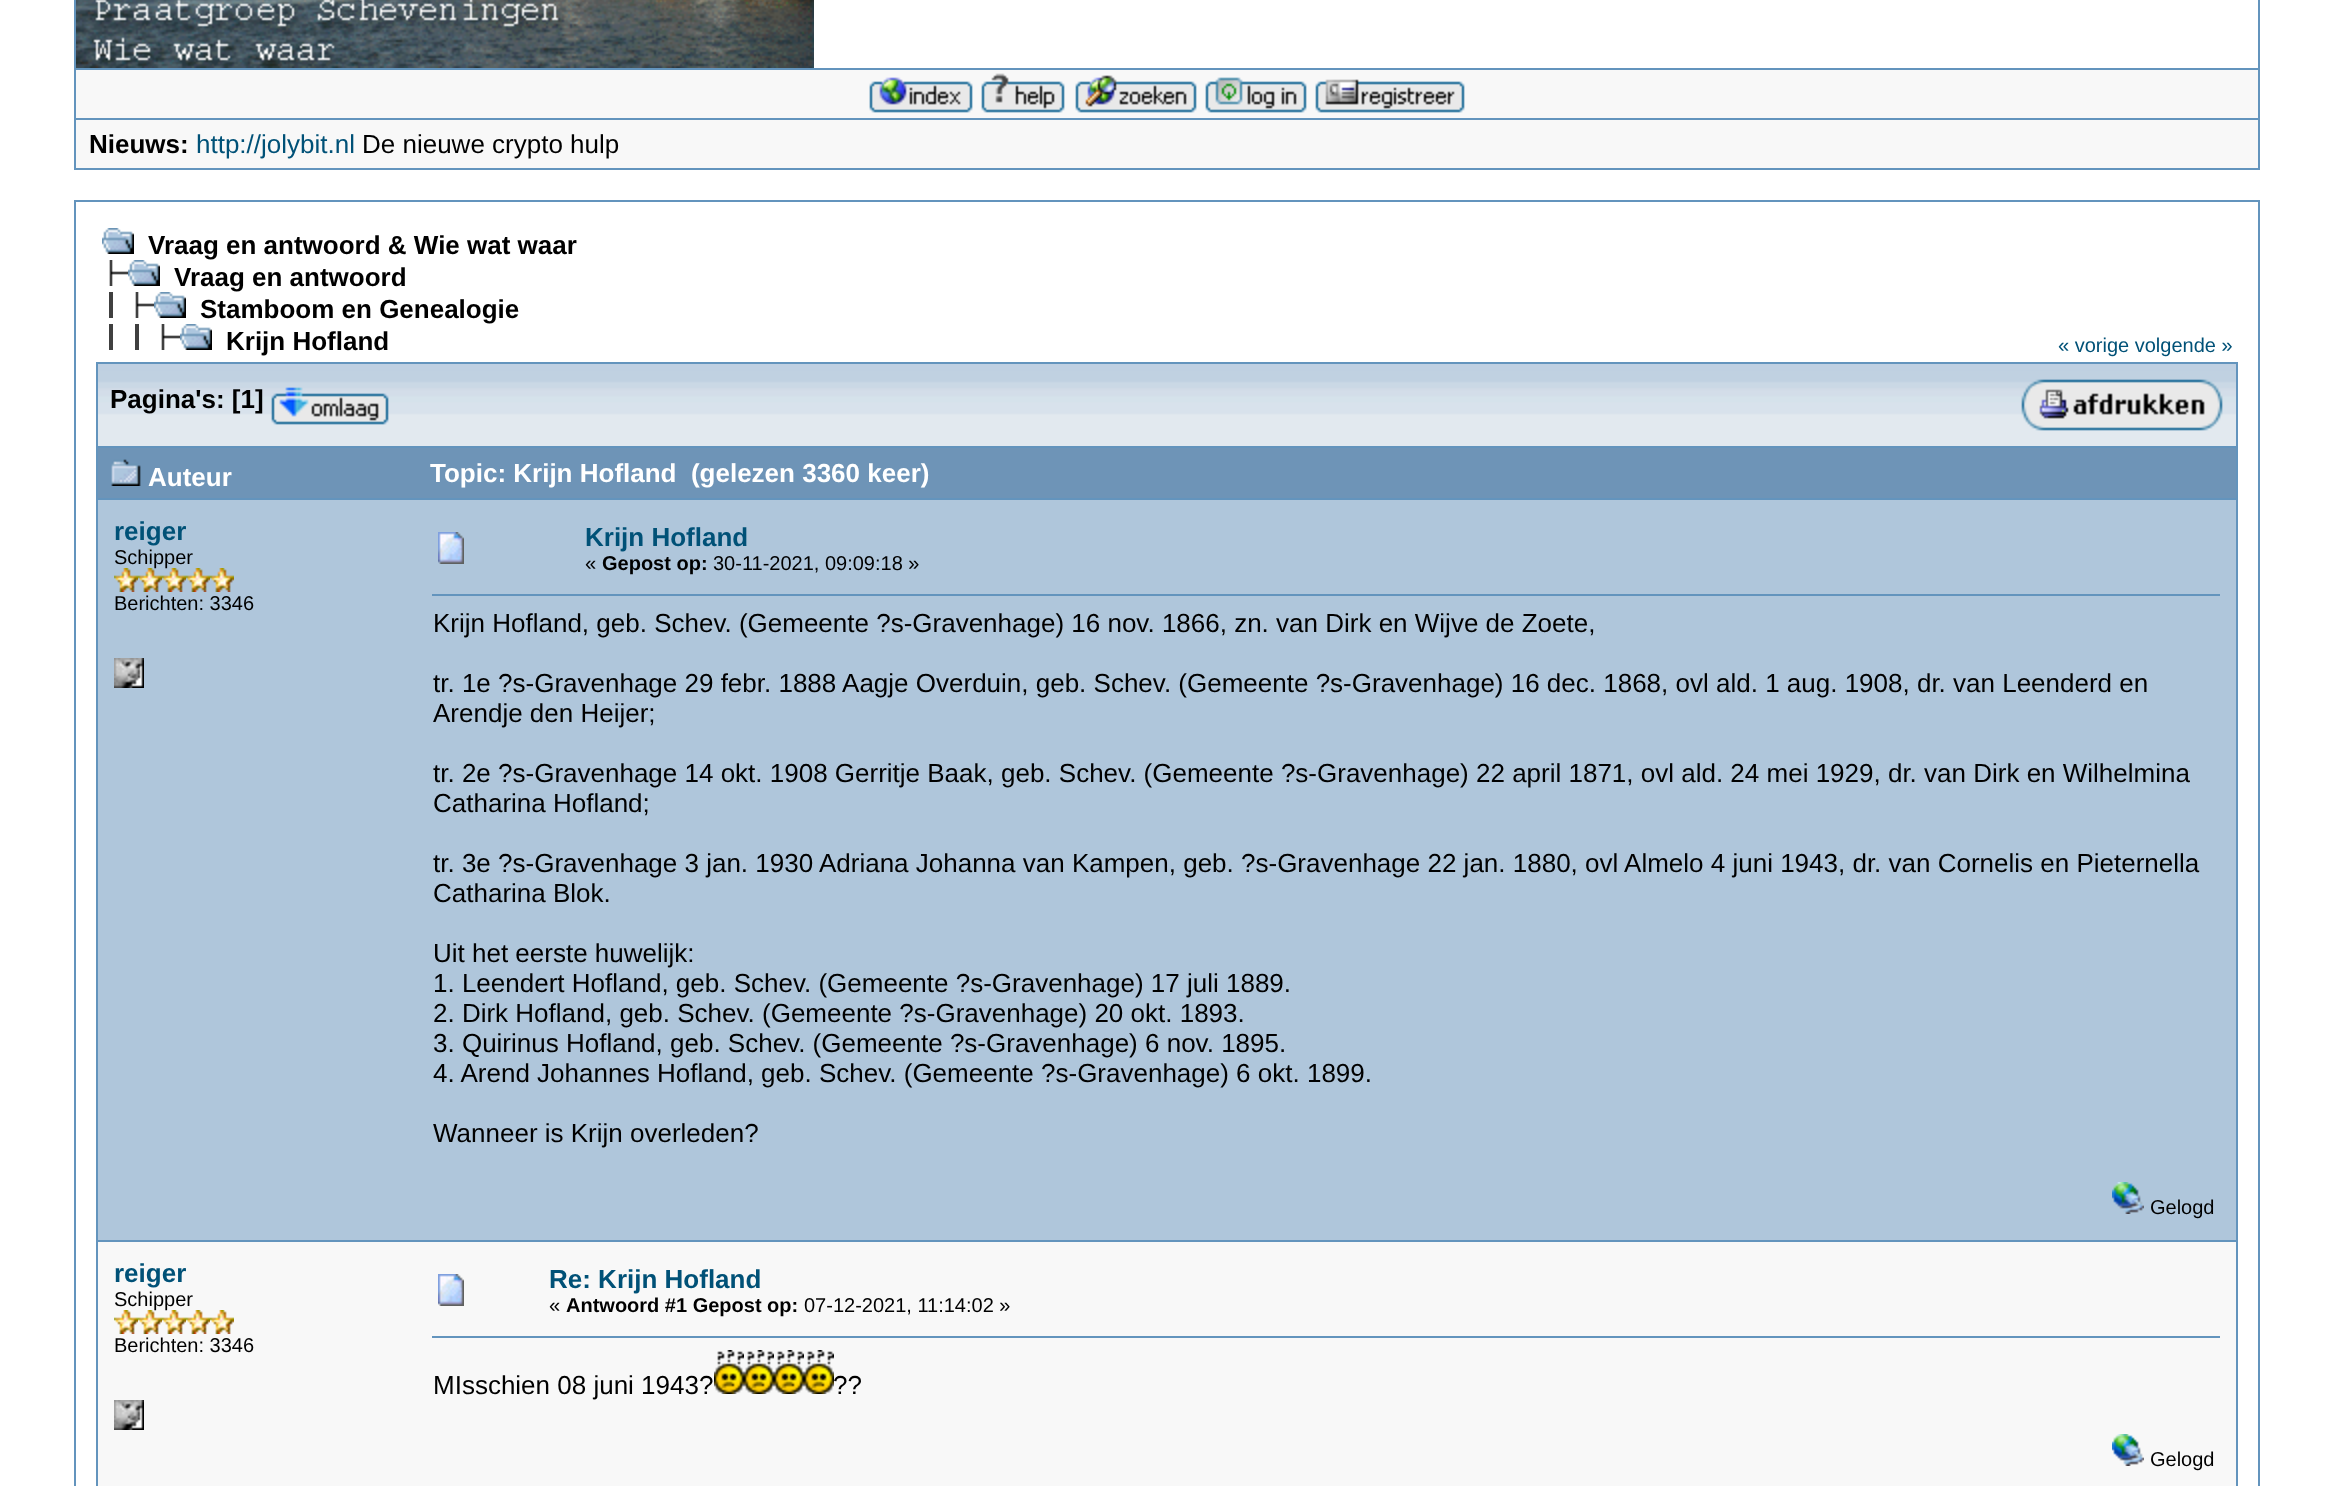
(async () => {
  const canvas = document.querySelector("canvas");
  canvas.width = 2333;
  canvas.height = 1486;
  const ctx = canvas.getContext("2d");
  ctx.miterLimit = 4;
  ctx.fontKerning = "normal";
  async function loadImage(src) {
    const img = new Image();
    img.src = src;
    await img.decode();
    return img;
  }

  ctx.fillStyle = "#ffffff";
  ctx.fillRect(0, 0, 2333, 1486);
  ctx.strokeStyle = "#6394bd";
  ctx.lineWidth = 2;
  ctx.strokeRect(75, -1, 2184, 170);
  ctx.drawImage(await loadImage("img/1.png"), 76, 0, 738, 68);
  ctx.fillStyle = "#f8f8f8";
  ctx.fillRect(76, 70, 2182, 48);
  ctx.fillStyle = "#6394bd";
  ctx.fillRect(76, 68, 2182, 2);
  ctx.drawImage(await loadImage("img/2.png"), 869, 77, 104, 36);
  ctx.drawImage(await loadImage("img/3.png"), 981, 73, 84, 40);
  ctx.drawImage(await loadImage("img/4.png"), 1075, 75, 122, 38);
  ctx.drawImage(await loadImage("img/5.png"), 1205, 77, 102, 36);
  ctx.drawImage(await loadImage("img/6.png"), 1315, 79, 150, 34);
  ctx.fillStyle = "#f8f8f8";
  ctx.fillRect(76, 120, 2182, 48);
  ctx.fillStyle = "#6394bd";
  ctx.fillRect(76, 118, 2182, 2);
  ctx.strokeRect(75, 201, 2184, 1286);
  ctx.drawImage(await loadImage("img/7.png"), 102, 228, 32, 26);
  ctx.drawImage(await loadImage("img/8.png"), 109, 260, 19, 26);
  ctx.drawImage(await loadImage("img/7.png"), 128, 260, 32, 26);
  ctx.drawImage(await loadImage("img/8.png"), 135, 292, 19, 26);
  ctx.drawImage(await loadImage("img/7.png"), 154, 292, 32, 26);
  ctx.fillStyle = "#404040";
  ctx.fillRect(109, 292, 4, 26);
  ctx.drawImage(await loadImage("img/8.png"), 161, 324, 19, 26);
  ctx.drawImage(await loadImage("img/7.png"), 180, 324, 32, 26);
  for (const [x, y, w, h, color] of [
    [109, 324, 4, 26, "#404040"],
    [135, 324, 4, 26, "#404040"],
    [96, 362, 2142, 2, "#6394bd"],
    [2236, 362, 2, 84, "#6394bd"],
    [96, 362, 2, 84, "#6394bd"],
  ]) {
    ctx.fillStyle = color;
    ctx.fillRect(x, y, w, h);
  }
  ctx.drawImage(await loadImage("img/9.png"), 98, 364, 2138, 82);
  ctx.drawImage(await loadImage("img/10.png"), 271, 387, 118, 38);
  ctx.drawImage(await loadImage("img/11.png"), 2021, 379, 202, 52);
  for (const [x, y, w, h, color] of [
    [96, 446, 2142, 2, "#6394bd"],
    [2236, 446, 2, 52, "#6394bd"],
    [96, 446, 2, 52, "#6394bd"],
    [98, 448, 2138, 50, "#6e94b7"],
  ]) {
    ctx.fillStyle = color;
    ctx.fillRect(x, y, w, h);
  }
  ctx.drawImage(await loadImage("img/12.png"), 111, 459, 30, 27);
  ctx.fillStyle = "#6394bd";
  ctx.fillRect(96, 498, 2142, 988);
  ctx.fillStyle = "#afc6db";
  ctx.fillRect(98, 500, 2138, 740);
  ctx.drawImage(await loadImage("img/13.png"), 210, 568, 24, 24);
  ctx.drawImage(await loadImage("img/16.png"), 114, 658, 30, 30);
  ctx.drawImage(await loadImage("img/17.png"), 438, 532, 26, 32);
  ctx.fillStyle = "#6394bd";
  ctx.fillRect(432, 594, 1788, 2);
  ctx.drawImage(await loadImage("img/18.png"), 2112, 1182, 32, 32);
  ctx.fillStyle = "#f8f8f8";
  ctx.fillRect(98, 1242, 2138, 244);
  ctx.drawImage(await loadImage("img/19.png"), 210, 1310, 24, 24);
  ctx.drawImage(await loadImage("img/16.png"), 114, 1400, 30, 30);
  ctx.drawImage(await loadImage("img/22.png"), 438, 1274, 26, 32);
  ctx.fillStyle = "#6394bd";
  ctx.fillRect(432, 1336, 1788, 2);
  ctx.drawImage(await loadImage("img/23.png"), 714, 1350, 30, 44);
  ctx.drawImage(await loadImage("img/23.png"), 744, 1350, 30, 44);
  ctx.drawImage(await loadImage("img/23.png"), 774, 1350, 30, 44);
  ctx.drawImage(await loadImage("img/23.png"), 804, 1350, 30, 44);
  ctx.drawImage(await loadImage("img/24.png"), 2112, 1434, 32, 32);
  ctx.font = "bold 26px Liberation Sans";
  ctx.fillStyle = "#000000";
  ctx.fillText("Nieuws:", 89, 153);
  ctx.font = "26px Liberation Sans";
  ctx.fillStyle = "#005177";
  ctx.fillText("http://jolybit.nl", 196, 153);
  ctx.fillStyle = "#000000";
  ctx.fillText("De nieuwe crypto hulp", 362, 153);
  ctx.font = "bold 26px Liberation Sans";
  for (const [text, x, y] of [
    ["Vraag en antwoord & Wie wat waar", 148, 254],
    ["Vraag en antwoord", 174, 286],
    ["Stamboom en Genealogie", 200, 318],
    ["Krijn Hofland", 226, 350],
  ]) {
    ctx.fillText(text, x, y);
  }
  ctx.font = "20px Liberation Sans";
  ctx.fillStyle = "#005177";
  ctx.fillText("« vorige volgende »", 2058, 352);
  ctx.font = "bold 26px Liberation Sans";
  ctx.fillStyle = "#000000";
  ctx.fillText("Pagina's: [1]", 110, 408);
  ctx.fillStyle = "#ffffff";
  ctx.fillText("Auteur", 148, 486);
  ctx.fillText("Topic: Krijn Hofland  (gelezen 3360 keer)", 430, 482);
  ctx.fillStyle = "#005177";
  ctx.fillText("reiger", 114, 540);
  ctx.font = "20px Liberation Sans";
  ctx.fillStyle = "#000000";
  ctx.fillText("Schipper", 114, 564);
  ctx.drawImage(await loadImage("img/13.png"), 114, 568, 24, 24);
  ctx.drawImage(await loadImage("img/14.png"), 138, 568, 24, 24);
  ctx.drawImage(await loadImage("img/15.png"), 162, 568, 24, 24);
  ctx.drawImage(await loadImage("img/13.png"), 186, 568, 24, 24);
  ctx.fillText("Berichten: 3346", 114, 610);
  ctx.font = "bold 26px Liberation Sans";
  ctx.fillStyle = "#005177";
  ctx.fillText("Krijn Hofland", 585, 546);
  ctx.font = "20px Liberation Sans";
  ctx.fillStyle = "#000000";
  ctx.fillText("«", 585, 570);
  ctx.font = "bold 20px Liberation Sans";
  ctx.fillText("Gepost op:", 602, 570);
  ctx.font = "20px Liberation Sans";
  ctx.fillText("30-11-2021, 09:09:18 »", 713, 570);
  ctx.font = "26px Liberation Sans";
  for (const [text, x, y] of [
    ["Krijn Hofland, geb. Schev. (Gemeente ?s-Gravenhage) 16 nov. 1866, zn. van Dirk en Wijve de Zoete,", 433, 632],
    ["tr. 1e ?s-Gravenhage 29 febr. 1888 Aagje Overduin, geb. Schev. (Gemeente ?s-Gravenhage) 16 dec. 1868, ovl ald. 1 aug. 1908, dr. van Leenderd en", 433, 692],
    ["Arendje den Heijer;", 433, 722],
    ["tr. 2e ?s-Gravenhage 14 okt. 1908 Gerritje Baak, geb. Schev. (Gemeente ?s-Gravenhage) 22 april 1871, ovl ald. 24 mei 1929, dr. van Dirk en Wilhelmina", 433, 782],
    ["Catharina Hofland;", 433, 812],
    ["tr. 3e ?s-Gravenhage 3 jan. 1930 Adriana Johanna van Kampen, geb. ?s-Gravenhage 22 jan. 1880, ovl Almelo 4 juni 1943, dr. van Cornelis en Pieternella", 433, 872],
    ["Catharina Blok.", 433, 902],
    ["Uit het eerste huwelijk:", 433, 962],
    ["1. Leendert Hofland, geb. Schev. (Gemeente ?s-Gravenhage) 17 juli 1889.", 433, 992],
    ["2. Dirk Hofland, geb. Schev. (Gemeente ?s-Gravenhage) 20 okt. 1893.", 433, 1022],
    ["3. Quirinus Hofland, geb. Schev. (Gemeente ?s-Gravenhage) 6 nov. 1895.", 433, 1052],
    ["4. Arend Johannes Hofland, geb. Schev. (Gemeente ?s-Gravenhage) 6 okt. 1899.", 433, 1082],
    ["Wanneer is Krijn overleden?", 433, 1142],
  ]) {
    ctx.fillText(text, x, y);
  }
  ctx.font = "20px Liberation Sans";
  ctx.fillText("Gelogd", 2150, 1214);
  ctx.font = "bold 26px Liberation Sans";
  ctx.fillStyle = "#005177";
  ctx.fillText("reiger", 114, 1282);
  ctx.font = "20px Liberation Sans";
  ctx.fillStyle = "#000000";
  ctx.fillText("Schipper", 114, 1306);
  ctx.drawImage(await loadImage("img/19.png"), 114, 1310, 24, 24);
  ctx.drawImage(await loadImage("img/20.png"), 138, 1310, 24, 24);
  ctx.drawImage(await loadImage("img/21.png"), 162, 1310, 24, 24);
  ctx.drawImage(await loadImage("img/19.png"), 186, 1310, 24, 24);
  ctx.fillText("Berichten: 3346", 114, 1352);
  ctx.font = "bold 26px Liberation Sans";
  ctx.fillStyle = "#005177";
  ctx.fillText("Re: Krijn Hofland", 549, 1288);
  ctx.font = "20px Liberation Sans";
  ctx.fillStyle = "#000000";
  ctx.fillText("«", 549, 1312);
  ctx.font = "bold 20px Liberation Sans";
  ctx.fillText("Antwoord #1 Gepost op:", 566, 1312);
  ctx.font = "20px Liberation Sans";
  ctx.fillText("07-12-2021, 11:14:02 »", 804, 1312);
  ctx.font = "26px Liberation Sans";
  ctx.fillText("MIsschien 08 juni 1943?", 433, 1394);
  ctx.fillText("??", 833, 1394);
  ctx.font = "20px Liberation Sans";
  ctx.fillText("Gelogd", 2150, 1466);
})();
